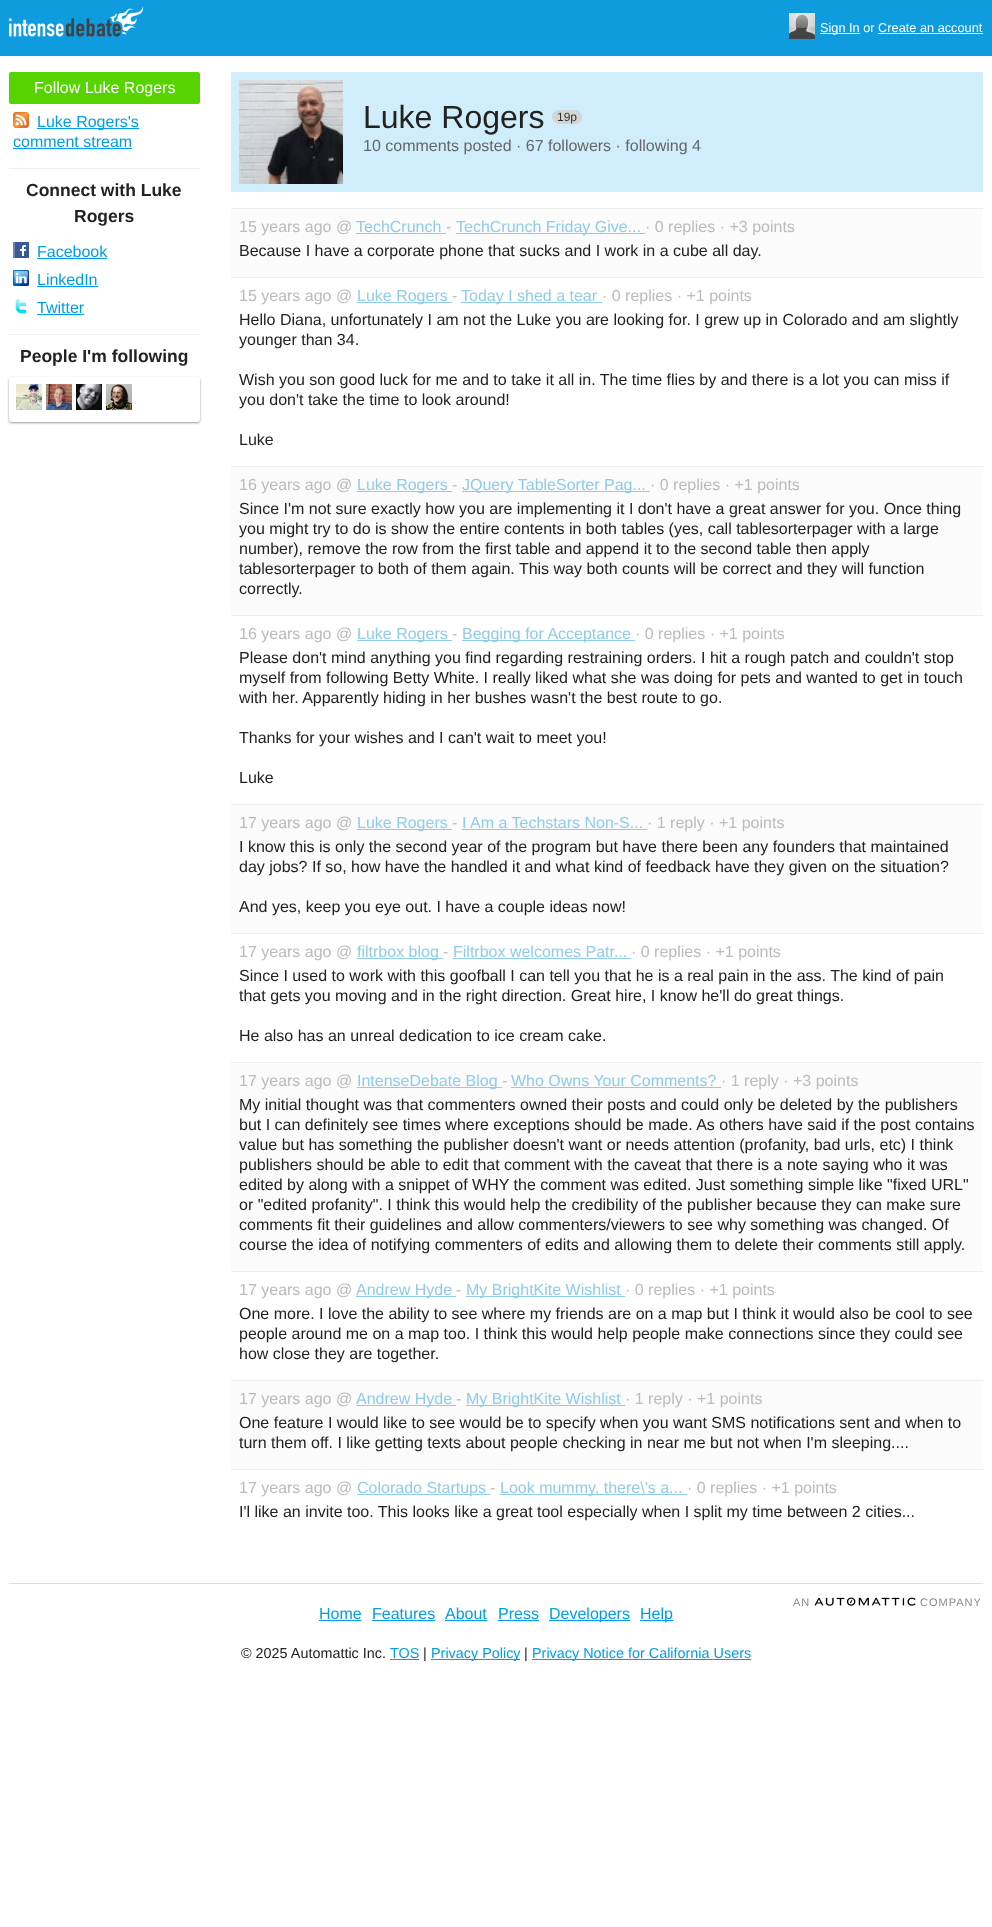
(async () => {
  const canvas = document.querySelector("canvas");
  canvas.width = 992;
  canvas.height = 1927;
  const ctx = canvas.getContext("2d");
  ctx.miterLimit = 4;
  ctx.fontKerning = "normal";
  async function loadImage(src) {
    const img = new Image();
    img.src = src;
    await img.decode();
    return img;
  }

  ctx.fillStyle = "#ffffff";
  ctx.fillRect(0, 0, 992, 1927);
  ctx.fillStyle = "#0f9cdf";
  ctx.fillRect(0, 0, 992, 56);
  ctx.drawImage(await loadImage("img/1.png"), 9, 6, 134, 31);
  ctx.drawImage(await loadImage("img/2.png"), 789, 13, 26, 26);
  ctx.fillStyle = "#ffffff";
  ctx.fillRect(820, 33, 40, 1);
  ctx.fillRect(878, 33, 105, 1);
  ctx.fillStyle = "#57d400";
  ctx.beginPath();
  ctx.roundRect(9, 72, 191, 32, 2);
  ctx.fill();
  ctx.drawImage(await loadImage("img/3.png"), 13, 112, 16, 16);
  for (const [x, y, w, h, color] of [
    [37, 128, 102, 1, "#009ee4"],
    [13, 148, 119, 1, "#009ee4"],
    [9, 168, 191, 1, "#efefef"],
  ]) {
    ctx.fillStyle = color;
    ctx.fillRect(x, y, w, h);
  }
  ctx.drawImage(await loadImage("img/4.png"), 13, 242, 16, 16);
  ctx.fillStyle = "#009ee4";
  ctx.fillRect(37, 258, 70, 1);
  ctx.drawImage(await loadImage("img/5.png"), 13, 270, 16, 16);
  ctx.fillRect(37, 286, 61, 1);
  ctx.drawImage(await loadImage("img/6.png"), 15, 298, 12, 16);
  ctx.fillRect(37, 314, 47, 1);
  ctx.fillStyle = "#efefef";
  ctx.fillRect(9, 334, 191, 1);
  ctx.fillStyle = "#999999";
  ctx.filter = "blur(1px)";
  ctx.beginPath();
  ctx.roundRect(9, 378, 191, 45, 3);
  ctx.fill();
  ctx.filter = "none";
  ctx.fillStyle = "#ffffff";
  ctx.beginPath();
  ctx.roundRect(9, 377, 191, 45, 3);
  ctx.fill();
  ctx.drawImage(await loadImage("img/7.png"), 16, 384, 26, 26);
  ctx.drawImage(await loadImage("img/8.png"), 46, 384, 26, 26);
  ctx.drawImage(await loadImage("img/9.png"), 76, 384, 26, 26);
  ctx.drawImage(await loadImage("img/10.png"), 106, 384, 26, 26);
  ctx.fillStyle = "#cfedfb";
  ctx.fillRect(231, 72, 752, 120);
  ctx.drawImage(await loadImage("img/11.png"), 239, 80, 104, 104);
  ctx.drawImage(await loadImage("img/12.png"), 552, 110, 5, 14);
  ctx.drawImage(await loadImage("img/13.png"), 557, 110, 25, 14);
  for (const [x, y, w, h, color] of [
    [231, 209, 752, 68, "#fbfbfb"],
    [231, 208, 752, 1, "#efefef"],
    [356, 233, 90, 1, "#90cbe8"],
    [456, 233, 189, 1, "#90cbe8"],
    [231, 277, 752, 1, "#efefef"],
    [357, 302, 95, 1, "#90cbe8"],
    [461, 302, 141, 1, "#90cbe8"],
    [231, 467, 752, 148, "#fbfbfb"],
    [231, 466, 752, 1, "#efefef"],
    [357, 491, 95, 1, "#90cbe8"],
    [462, 491, 188, 1, "#90cbe8"],
    [231, 615, 752, 1, "#efefef"],
    [357, 640, 95, 1, "#90cbe8"],
    [462, 640, 173, 1, "#90cbe8"],
    [231, 805, 752, 128, "#fbfbfb"],
    [231, 804, 752, 1, "#efefef"],
    [357, 829, 95, 1, "#90cbe8"],
    [462, 829, 185, 1, "#90cbe8"],
    [231, 933, 752, 1, "#efefef"],
    [357, 958, 86, 1, "#90cbe8"],
    [453, 958, 178, 1, "#90cbe8"],
    [231, 1063, 752, 208, "#fbfbfb"],
    [231, 1062, 752, 1, "#efefef"],
    [357, 1087, 145, 1, "#90cbe8"],
    [511, 1087, 210, 1, "#90cbe8"],
    [231, 1271, 752, 1, "#efefef"],
    [356, 1296, 100, 1, "#90cbe8"],
    [466, 1296, 159, 1, "#90cbe8"],
    [231, 1381, 752, 88, "#fbfbfb"],
    [231, 1380, 752, 1, "#efefef"],
    [356, 1405, 100, 1, "#90cbe8"],
    [466, 1405, 159, 1, "#90cbe8"],
    [231, 1469, 752, 1, "#efefef"],
    [357, 1494, 133, 1, "#90cbe8"],
    [500, 1494, 187, 1, "#90cbe8"],
    [9, 1583, 974, 1, "#dddddd"],
  ]) {
    ctx.fillStyle = color;
    ctx.fillRect(x, y, w, h);
  }
  ctx.drawImage(await loadImage("img/14.png"), 814, 1597, 102, 9);
  for (const [x, y, w, h, color] of [
    [319, 1620, 42, 1, "#009ee4"],
    [372, 1620, 63, 1, "#009ee4"],
    [445, 1620, 42, 1, "#009ee4"],
    [498, 1620, 41, 1, "#009ee4"],
    [549, 1620, 81, 1, "#009ee4"],
    [640, 1620, 33, 1, "#009ee4"],
    [390, 1659, 29, 1, "#009ee4"],
    [431, 1659, 89, 1, "#009ee4"],
    [532, 1659, 219, 1, "#009ee4"],
  ]) {
    ctx.fillStyle = color;
    ctx.fillRect(x, y, w, h);
  }
  ctx.font = "12.75px Liberation Sans";
  ctx.fillStyle = "#ffffff";
  ctx.fillText("Sign In or Create an account", 820, 32);
  ctx.font = "16px Liberation Sans";
  ctx.fillText("Follow Luke Rogers", 34, 93);
  ctx.fillStyle = "#009ee4";
  ctx.fillText("Luke Rogers's", 37, 127);
  ctx.fillText("comment stream", 13, 147);
  ctx.font = "bold 17.5px Liberation Sans";
  ctx.fillStyle = "#222222";
  ctx.fillText("Connect with Luke", 26, 196);
  ctx.fillText("Rogers", 74, 222);
  ctx.font = "16px Liberation Sans";
  ctx.fillStyle = "#009ee4";
  for (const [text, x, y] of [
    ["Facebook", 37, 257],
    ["LinkedIn", 37, 285],
    ["Twitter", 37, 313],
  ]) {
    ctx.fillText(text, x, y);
  }
  ctx.font = "bold 17.5px Liberation Sans";
  ctx.fillStyle = "#222222";
  ctx.fillText("People I'm following", 20, 362);
  ctx.font = "32px Liberation Sans";
  ctx.fillText("Luke Rogers", 363, 128);
  ctx.font = "12px Liberation Sans";
  ctx.fillStyle = "#333333";
  ctx.fillText("19p", 557, 121);
  ctx.font = "16px Liberation Sans";
  ctx.fillStyle = "#666666";
  ctx.fillText("10 comments posted · 67 followers · following 4", 363, 151);
  ctx.fillStyle = "#bbbbbb";
  ctx.fillText("15 years ago @", 239, 232);
  ctx.fillStyle = "#90cbe8";
  ctx.fillText("TechCrunch", 356, 232);
  ctx.fillStyle = "#bbbbbb";
  ctx.fillText("-", 446, 232);
  ctx.fillStyle = "#90cbe8";
  ctx.fillText("TechCrunch Friday Give...", 456, 232);
  ctx.fillStyle = "#bbbbbb";
  ctx.fillText("· 0 replies · +3 points", 645, 232);
  ctx.fillStyle = "#222222";
  ctx.fillText("Because I have a corporate phone that sucks and I work in a cube all day.", 239, 256);
  ctx.fillStyle = "#bbbbbb";
  ctx.fillText("15 years ago @", 239, 301);
  ctx.fillStyle = "#90cbe8";
  ctx.fillText("Luke Rogers", 357, 301);
  ctx.fillStyle = "#bbbbbb";
  ctx.fillText("-", 452, 301);
  ctx.fillStyle = "#90cbe8";
  ctx.fillText("Today I shed a tear", 461, 301);
  ctx.fillStyle = "#bbbbbb";
  ctx.fillText("· 0 replies · +1 points", 602, 301);
  ctx.fillStyle = "#222222";
  for (const [text, x, y] of [
    ["Hello Diana, unfortunately I am not the Luke you are looking for. I grew up in Colorado and am slightly", 239, 325],
    ["younger than 34.", 239, 345],
    ["Wish you son good luck for me and to take it all in. The time flies by and there is a lot you can miss if", 239, 385],
    ["you don't take the time to look around!", 239, 405],
    ["Luke", 239, 445],
  ]) {
    ctx.fillText(text, x, y);
  }
  ctx.fillStyle = "#bbbbbb";
  ctx.fillText("16 years ago @", 239, 490);
  ctx.fillStyle = "#90cbe8";
  ctx.fillText("Luke Rogers", 357, 490);
  ctx.fillStyle = "#bbbbbb";
  ctx.fillText("-", 452, 490);
  ctx.fillStyle = "#90cbe8";
  ctx.fillText("JQuery TableSorter Pag...", 462, 490);
  ctx.fillStyle = "#bbbbbb";
  ctx.fillText("· 0 replies · +1 points", 650, 490);
  ctx.fillStyle = "#222222";
  for (const [text, x, y] of [
    ["Since I'm not sure exactly how you are implementing it I don't have a great answer for you. Once thing", 239, 514],
    ["you might try to do is show the entire contents in both tables (yes, call tablesorterpager with a large", 239, 534],
    ["number), remove the row from the first table and append it to the second table then apply", 239, 554],
    ["tablesorterpager to both of them again. This way both counts will be correct and they will function", 239, 574],
    ["correctly.", 239, 594],
  ]) {
    ctx.fillText(text, x, y);
  }
  ctx.fillStyle = "#bbbbbb";
  ctx.fillText("16 years ago @", 239, 639);
  ctx.fillStyle = "#90cbe8";
  ctx.fillText("Luke Rogers", 357, 639);
  ctx.fillStyle = "#bbbbbb";
  ctx.fillText("-", 452, 639);
  ctx.fillStyle = "#90cbe8";
  ctx.fillText("Begging for Acceptance", 462, 639);
  ctx.fillStyle = "#bbbbbb";
  ctx.fillText("· 0 replies · +1 points", 635, 639);
  ctx.fillStyle = "#222222";
  for (const [text, x, y] of [
    ["Please don't mind anything you find regarding restraining orders. I hit a rough patch and couldn't stop", 239, 663],
    ["myself from following Betty White. I really liked what she was doing for pets and wanted to get in touch", 239, 683],
    ["with her. Apparently hiding in her bushes wasn't the best route to go.", 239, 703],
    ["Thanks for your wishes and I can't wait to meet you!", 239, 743],
    ["Luke", 239, 783],
  ]) {
    ctx.fillText(text, x, y);
  }
  ctx.fillStyle = "#bbbbbb";
  ctx.fillText("17 years ago @", 239, 828);
  ctx.fillStyle = "#90cbe8";
  ctx.fillText("Luke Rogers", 357, 828);
  ctx.fillStyle = "#bbbbbb";
  ctx.fillText("-", 452, 828);
  ctx.fillStyle = "#90cbe8";
  ctx.fillText("I Am a Techstars Non-S...", 462, 828);
  ctx.fillStyle = "#bbbbbb";
  ctx.fillText("· 1 reply · +1 points", 647, 828);
  ctx.fillStyle = "#222222";
  for (const [text, x, y] of [
    ["I know this is only the second year of the program but have there been any founders that maintained", 239, 852],
    ["day jobs? If so, how have the handled it and what kind of feedback have they given on the situation?", 239, 872],
    ["And yes, keep you eye out. I have a couple ideas now!", 239, 912],
  ]) {
    ctx.fillText(text, x, y);
  }
  ctx.fillStyle = "#bbbbbb";
  ctx.fillText("17 years ago @", 239, 957);
  ctx.fillStyle = "#90cbe8";
  ctx.fillText("filtrbox blog", 357, 957);
  ctx.fillStyle = "#bbbbbb";
  ctx.fillText("-", 443, 957);
  ctx.fillStyle = "#90cbe8";
  ctx.fillText("Filtrbox welcomes Patr...", 453, 957);
  ctx.fillStyle = "#bbbbbb";
  ctx.fillText("· 0 replies · +1 points", 631, 957);
  ctx.fillStyle = "#222222";
  for (const [text, x, y] of [
    ["Since I used to work with this goofball I can tell you that he is a real pain in the ass. The kind of pain", 239, 981],
    ["that gets you moving and in the right direction. Great hire, I know he'll do great things.", 239, 1001],
    ["He also has an unreal dedication to ice cream cake.", 239, 1041],
  ]) {
    ctx.fillText(text, x, y);
  }
  ctx.fillStyle = "#bbbbbb";
  ctx.fillText("17 years ago @", 239, 1086);
  ctx.fillStyle = "#90cbe8";
  ctx.fillText("IntenseDebate Blog", 357, 1086);
  ctx.fillStyle = "#bbbbbb";
  ctx.fillText("-", 502, 1086);
  ctx.fillStyle = "#90cbe8";
  ctx.fillText("Who Owns Your Comments?", 511, 1086);
  ctx.fillStyle = "#bbbbbb";
  ctx.fillText("· 1 reply · +3 points", 721, 1086);
  ctx.fillStyle = "#222222";
  for (const [text, x, y] of [
    ["My initial thought was that commenters owned their posts and could only be deleted by the publishers", 239, 1110],
    ["but I can definitely see times where exceptions should be made. As others have said if the post contains", 239, 1130],
    ["value but has something the publisher doesn't want or needs attention (profanity, bad urls, etc) I think", 239, 1150],
    ["publishers should be able to edit that comment with the caveat that there is a note saying who it was", 239, 1170],
    ["edited by along with a snippet of WHY the comment was edited. Just something simple like \"fixed URL\"", 239, 1190],
    ["or \"edited profanity\". I think this would help the credibility of the publisher because they can make sure", 239, 1210],
    ["comments fit their guidelines and allow commenters/viewers to see why something was changed. Of", 239, 1230],
    ["course the idea of notifying commenters of edits and allowing them to delete their comments still apply.", 239, 1250],
  ]) {
    ctx.fillText(text, x, y);
  }
  ctx.fillStyle = "#bbbbbb";
  ctx.fillText("17 years ago @", 239, 1295);
  ctx.fillStyle = "#90cbe8";
  ctx.fillText("Andrew Hyde", 356, 1295);
  ctx.fillStyle = "#bbbbbb";
  ctx.fillText("-", 456, 1295);
  ctx.fillStyle = "#90cbe8";
  ctx.fillText("My BrightKite Wishlist", 466, 1295);
  ctx.fillStyle = "#bbbbbb";
  ctx.fillText("· 0 replies · +1 points", 625, 1295);
  ctx.fillStyle = "#222222";
  for (const [text, x, y] of [
    ["One more. I love the ability to see where my friends are on a map but I think it would also be cool to see", 239, 1319],
    ["people around me on a map too. I think this would help people make connections since they could see", 239, 1339],
    ["how close they are together.", 239, 1359],
  ]) {
    ctx.fillText(text, x, y);
  }
  ctx.fillStyle = "#bbbbbb";
  ctx.fillText("17 years ago @", 239, 1404);
  ctx.fillStyle = "#90cbe8";
  ctx.fillText("Andrew Hyde", 356, 1404);
  ctx.fillStyle = "#bbbbbb";
  ctx.fillText("-", 456, 1404);
  ctx.fillStyle = "#90cbe8";
  ctx.fillText("My BrightKite Wishlist", 466, 1404);
  ctx.fillStyle = "#bbbbbb";
  ctx.fillText("· 1 reply · +1 points", 625, 1404);
  ctx.fillStyle = "#222222";
  ctx.fillText("One feature I would like to see would be to specify when you want SMS notifications sent and when to", 239, 1428);
  ctx.fillText("turn them off. I like getting texts about people checking in near me but not when I'm sleeping....", 239, 1448);
  ctx.fillStyle = "#bbbbbb";
  ctx.fillText("17 years ago @", 239, 1493);
  ctx.fillStyle = "#90cbe8";
  ctx.fillText("Colorado Startups", 357, 1493);
  ctx.fillStyle = "#bbbbbb";
  ctx.fillText("-", 490, 1493);
  ctx.fillStyle = "#90cbe8";
  ctx.fillText("Look mummy, there\\'s a...", 500, 1493);
  ctx.fillStyle = "#bbbbbb";
  ctx.fillText("· 0 replies · +1 points", 687, 1493);
  ctx.fillStyle = "#222222";
  ctx.fillText("I'l like an invite too. This looks like a great tool especially when I split my time between 2 cities...", 239, 1517);
  ctx.letterSpacing = "1px";
  ctx.font = "11px Liberation Sans";
  ctx.fillStyle = "#888888";
  ctx.fillText("AN", 793, 1606);
  ctx.fillText("COMPANY", 920, 1606);
  ctx.letterSpacing = "0px";
  ctx.font = "16px Liberation Sans";
  ctx.fillStyle = "#009ee4";
  for (const [text, x, y] of [
    ["Home", 319, 1619],
    ["Features", 372, 1619],
    ["About", 445, 1619],
    ["Press", 498, 1619],
    ["Developers", 549, 1619],
    ["Help", 640, 1619],
  ]) {
    ctx.fillText(text, x, y);
  }
  ctx.font = "14.4px Liberation Sans";
  ctx.fillStyle = "#222222";
  ctx.fillText("© 2025 Automattic Inc.", 241, 1658);
  ctx.fillStyle = "#009ee4";
  ctx.fillText("TOS", 390, 1658);
  ctx.fillStyle = "#222222";
  ctx.fillText("|", 423, 1658);
  ctx.fillStyle = "#009ee4";
  ctx.fillText("Privacy Policy", 431, 1658);
  ctx.fillStyle = "#222222";
  ctx.fillText("|", 524, 1658);
  ctx.fillStyle = "#009ee4";
  ctx.fillText("Privacy Notice for California Users", 532, 1658);
})();
